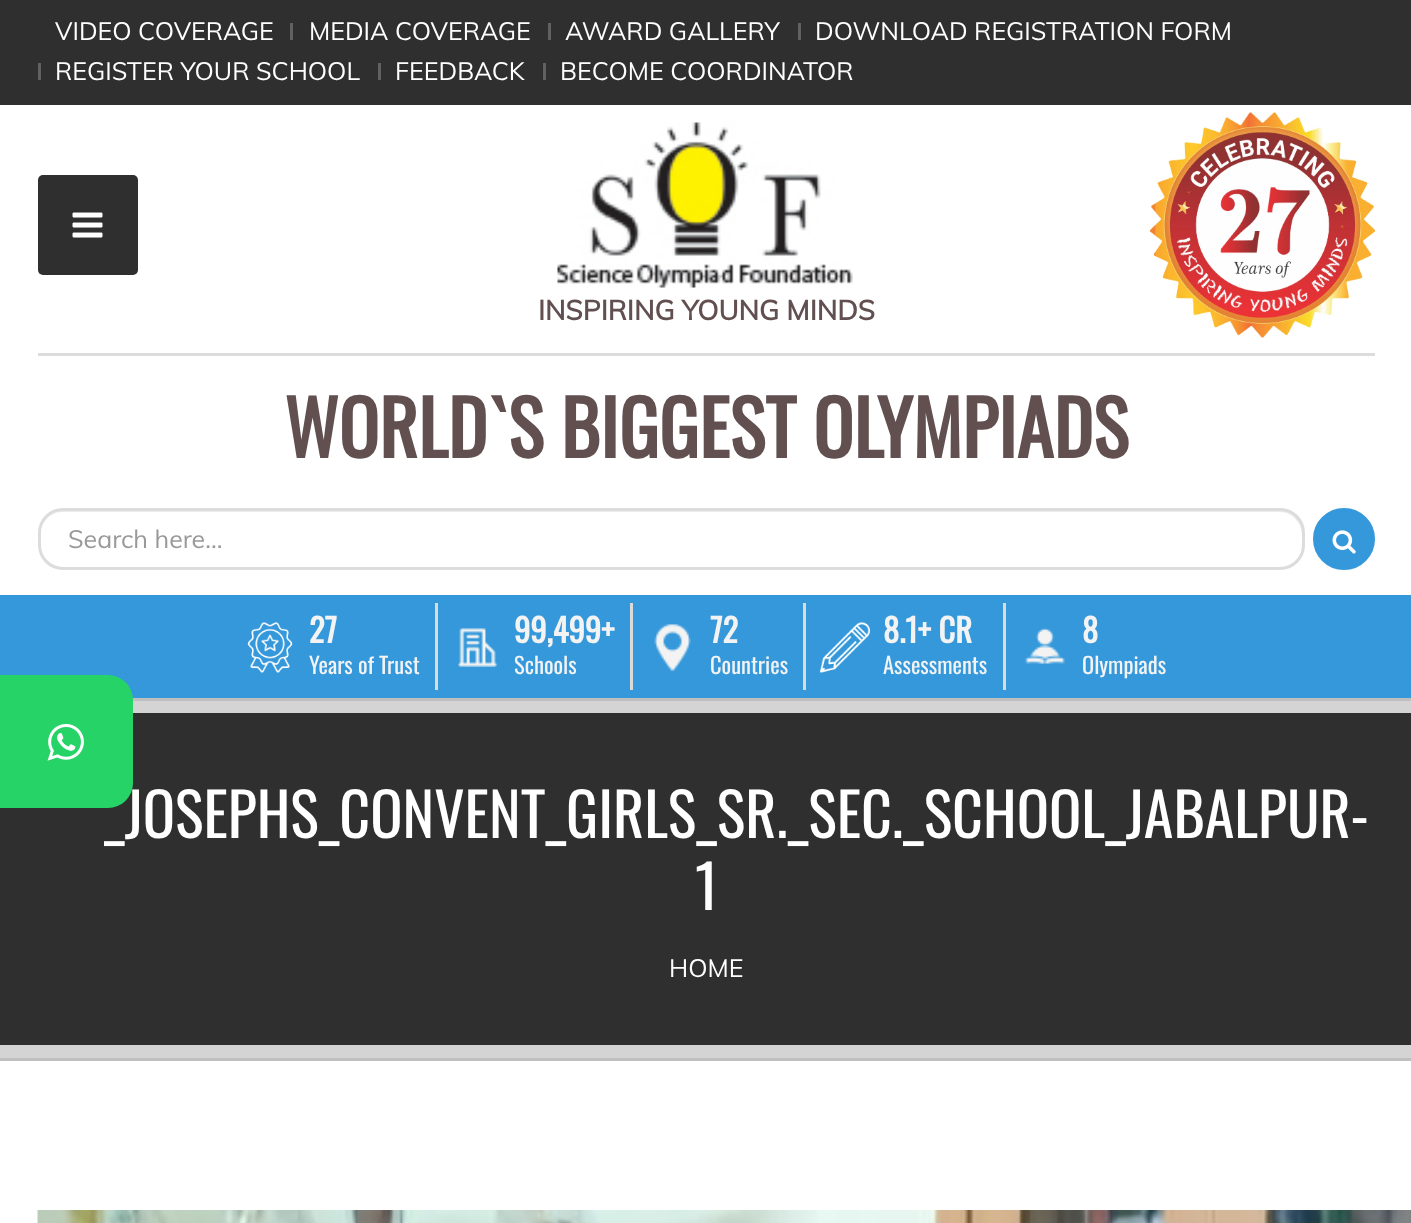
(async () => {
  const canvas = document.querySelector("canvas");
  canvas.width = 1411;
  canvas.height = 1223;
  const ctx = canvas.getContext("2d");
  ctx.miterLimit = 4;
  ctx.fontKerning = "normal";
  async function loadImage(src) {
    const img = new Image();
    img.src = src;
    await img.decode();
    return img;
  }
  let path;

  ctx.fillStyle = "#ffffff";
  ctx.fillRect(0, 0, 1411, 1223);
  for (const [x, y, w, h, color] of [
    [0, 0, 1411, 105, "#2f2f2f"],
    [290, 23, 3, 17, "#616161"],
    [548, 23, 3, 17, "#616161"],
    [798, 23, 3, 17, "#616161"],
    [38, 63, 3, 17, "#616161"],
    [378, 63, 3, 17, "#616161"],
    [543, 63, 3, 17, "#616161"],
  ]) {
    ctx.fillStyle = color;
    ctx.fillRect(x, y, w, h);
  }
  ctx.fillStyle = "#2f2f2f";
  ctx.beginPath();
  ctx.roundRect(38, 175, 100, 100, 5);
  ctx.fill();
  ctx.drawImage(await loadImage("img/1.png"), 72, 212, 31, 26);
  ctx.drawImage(await loadImage("img/2.png"), 1150, 112, 225, 226);
  ctx.drawImage(await loadImage("img/3.png"), 557, 122, 296, 166);
  ctx.fillStyle = "#dcdcdc";
  ctx.fillRect(38, 353, 1337, 3);
  ctx.fillStyle = "#ececec";
  path = new Path2D("M62 512H1280C1292 512 1302 523 1302 535V548L1301 554C1302 551 1303 548 1303 545V533C1303 520 1293 510 1280 510H63C50 510 40 520 40 533V535C40 523 50 512 62 512Z");
  ctx.fill(path);
  ctx.beginPath();
  ctx.roundRect(39.5, 509.5, 1264, 59, 23.5);
  ctx.strokeStyle = "#dcdcdc";
  ctx.lineWidth = 3;
  ctx.stroke();
  ctx.fillStyle = "#3498db";
  ctx.beginPath();
  ctx.arc(1344, 539, 29.5, 0, Math.PI * 2);
  ctx.fill();
  ctx.strokeStyle = "#3498db";
  ctx.stroke();
  ctx.drawImage(await loadImage("img/4.png"), 1332, 530, 24, 24);
  ctx.fillRect(0, 595, 1411, 103);
  ctx.drawImage(await loadImage("img/5.png"), 247, 622, 46, 51);
  ctx.fillStyle = "#dbdbdb";
  ctx.fillRect(435, 603, 3, 87);
  ctx.drawImage(await loadImage("img/6.png"), 458, 628, 40, 39);
  ctx.fillRect(630, 603, 3, 87);
  ctx.drawImage(await loadImage("img/7.png"), 654, 624, 37, 48);
  ctx.fillRect(803, 603, 3, 87);
  ctx.drawImage(await loadImage("img/8.png"), 820, 622, 50, 51);
  ctx.fillRect(1003, 603, 3, 87);
  ctx.drawImage(await loadImage("img/9.png"), 1025, 627, 40, 38);
  for (const [x, y, w, h, color] of [
    [0, 713, 1411, 332, "#2f2f2f"],
    [133, 701, 1278, 12, "#d4d4d4"],
    [0, 1045, 1411, 13, "#d4d4d4"],
    [132, 698, 1279, 3, "#bfbfbf"],
    [0, 1058, 1411, 3, "#bfbfbf"],
  ]) {
    ctx.fillStyle = color;
    ctx.fillRect(x, y, w, h);
  }
  ctx.drawImage(await loadImage("img/10.png"), 37, 1210, 1374, 13);
  ctx.font = "25px Muli";
  ctx.fillStyle = "#ffffff";
  for (const [text, x, y] of [
    ["VIDEO COVERAGE", 55, 40],
    ["MEDIA COVERAGE", 309, 40],
    ["AWARD GALLERY", 565, 40],
    ["DOWNLOAD REGISTRATION FORM", 815, 40],
    ["REGISTER YOUR SCHOOL", 55, 80],
    ["FEEDBACK", 395, 80],
    ["BECOME COORDINATOR", 560, 80],
  ]) {
    ctx.fillText(text, x, y);
  }
  ctx.font = "bold 27.5px Muli";
  ctx.fillStyle = "#625050";
  ctx.fillText("INSPIRING YOUNG MINDS", 538, 320);
  ctx.font = "bold 75px Oswald";
  ctx.fillText("WORLD`S BIGGEST OLYMPIADS", 284, 458);
  ctx.font = "25px Muli";
  ctx.fillStyle = "#999999";
  ctx.fillText("Search here...", 68, 548);
  ctx.font = "bold 32.5px Oswald";
  ctx.fillStyle = "#f3f3f3";
  ctx.fillText("27", 309, 643);
  ctx.font = "22.5px Oswald";
  ctx.fillText("Years of Trust", 309, 674);
  ctx.font = "bold 32.5px Oswald";
  ctx.fillText("99,499+", 514, 643);
  ctx.font = "22.5px Oswald";
  ctx.fillText("Schools", 514, 674);
  ctx.font = "bold 32.5px Oswald";
  ctx.fillText("72", 710, 643);
  ctx.font = "22.5px Oswald";
  ctx.fillText("Countries", 710, 674);
  ctx.font = "bold 32.5px Oswald";
  ctx.fillText("8.1+ CR", 883, 643);
  ctx.font = "22.5px Oswald";
  ctx.fillText("Assessments", 883, 674);
  ctx.font = "bold 32.5px Oswald";
  ctx.fillText("8", 1082, 643);
  ctx.font = "22.5px Oswald";
  ctx.fillText("Olympiads", 1082, 674);
  ctx.font = "60px Oswald";
  ctx.fillStyle = "#ffffff";
  ctx.fillText("_JOSEPHS_CONVENT_GIRLS_SR._SEC._SCHOOL_JABALPUR-", 104, 838);
  ctx.fillText("1", 695, 910);
  ctx.font = "25px Muli";
  ctx.fillText("HOME", 669, 977);
  ctx.fillStyle = "#26d367";
  ctx.beginPath();
  ctx.roundRect(0, 675, 133, 133, [0, 25, 25, 0]);
  ctx.fill();
  ctx.drawImage(await loadImage("img/11.png"), 47, 724, 37, 37);
})();
